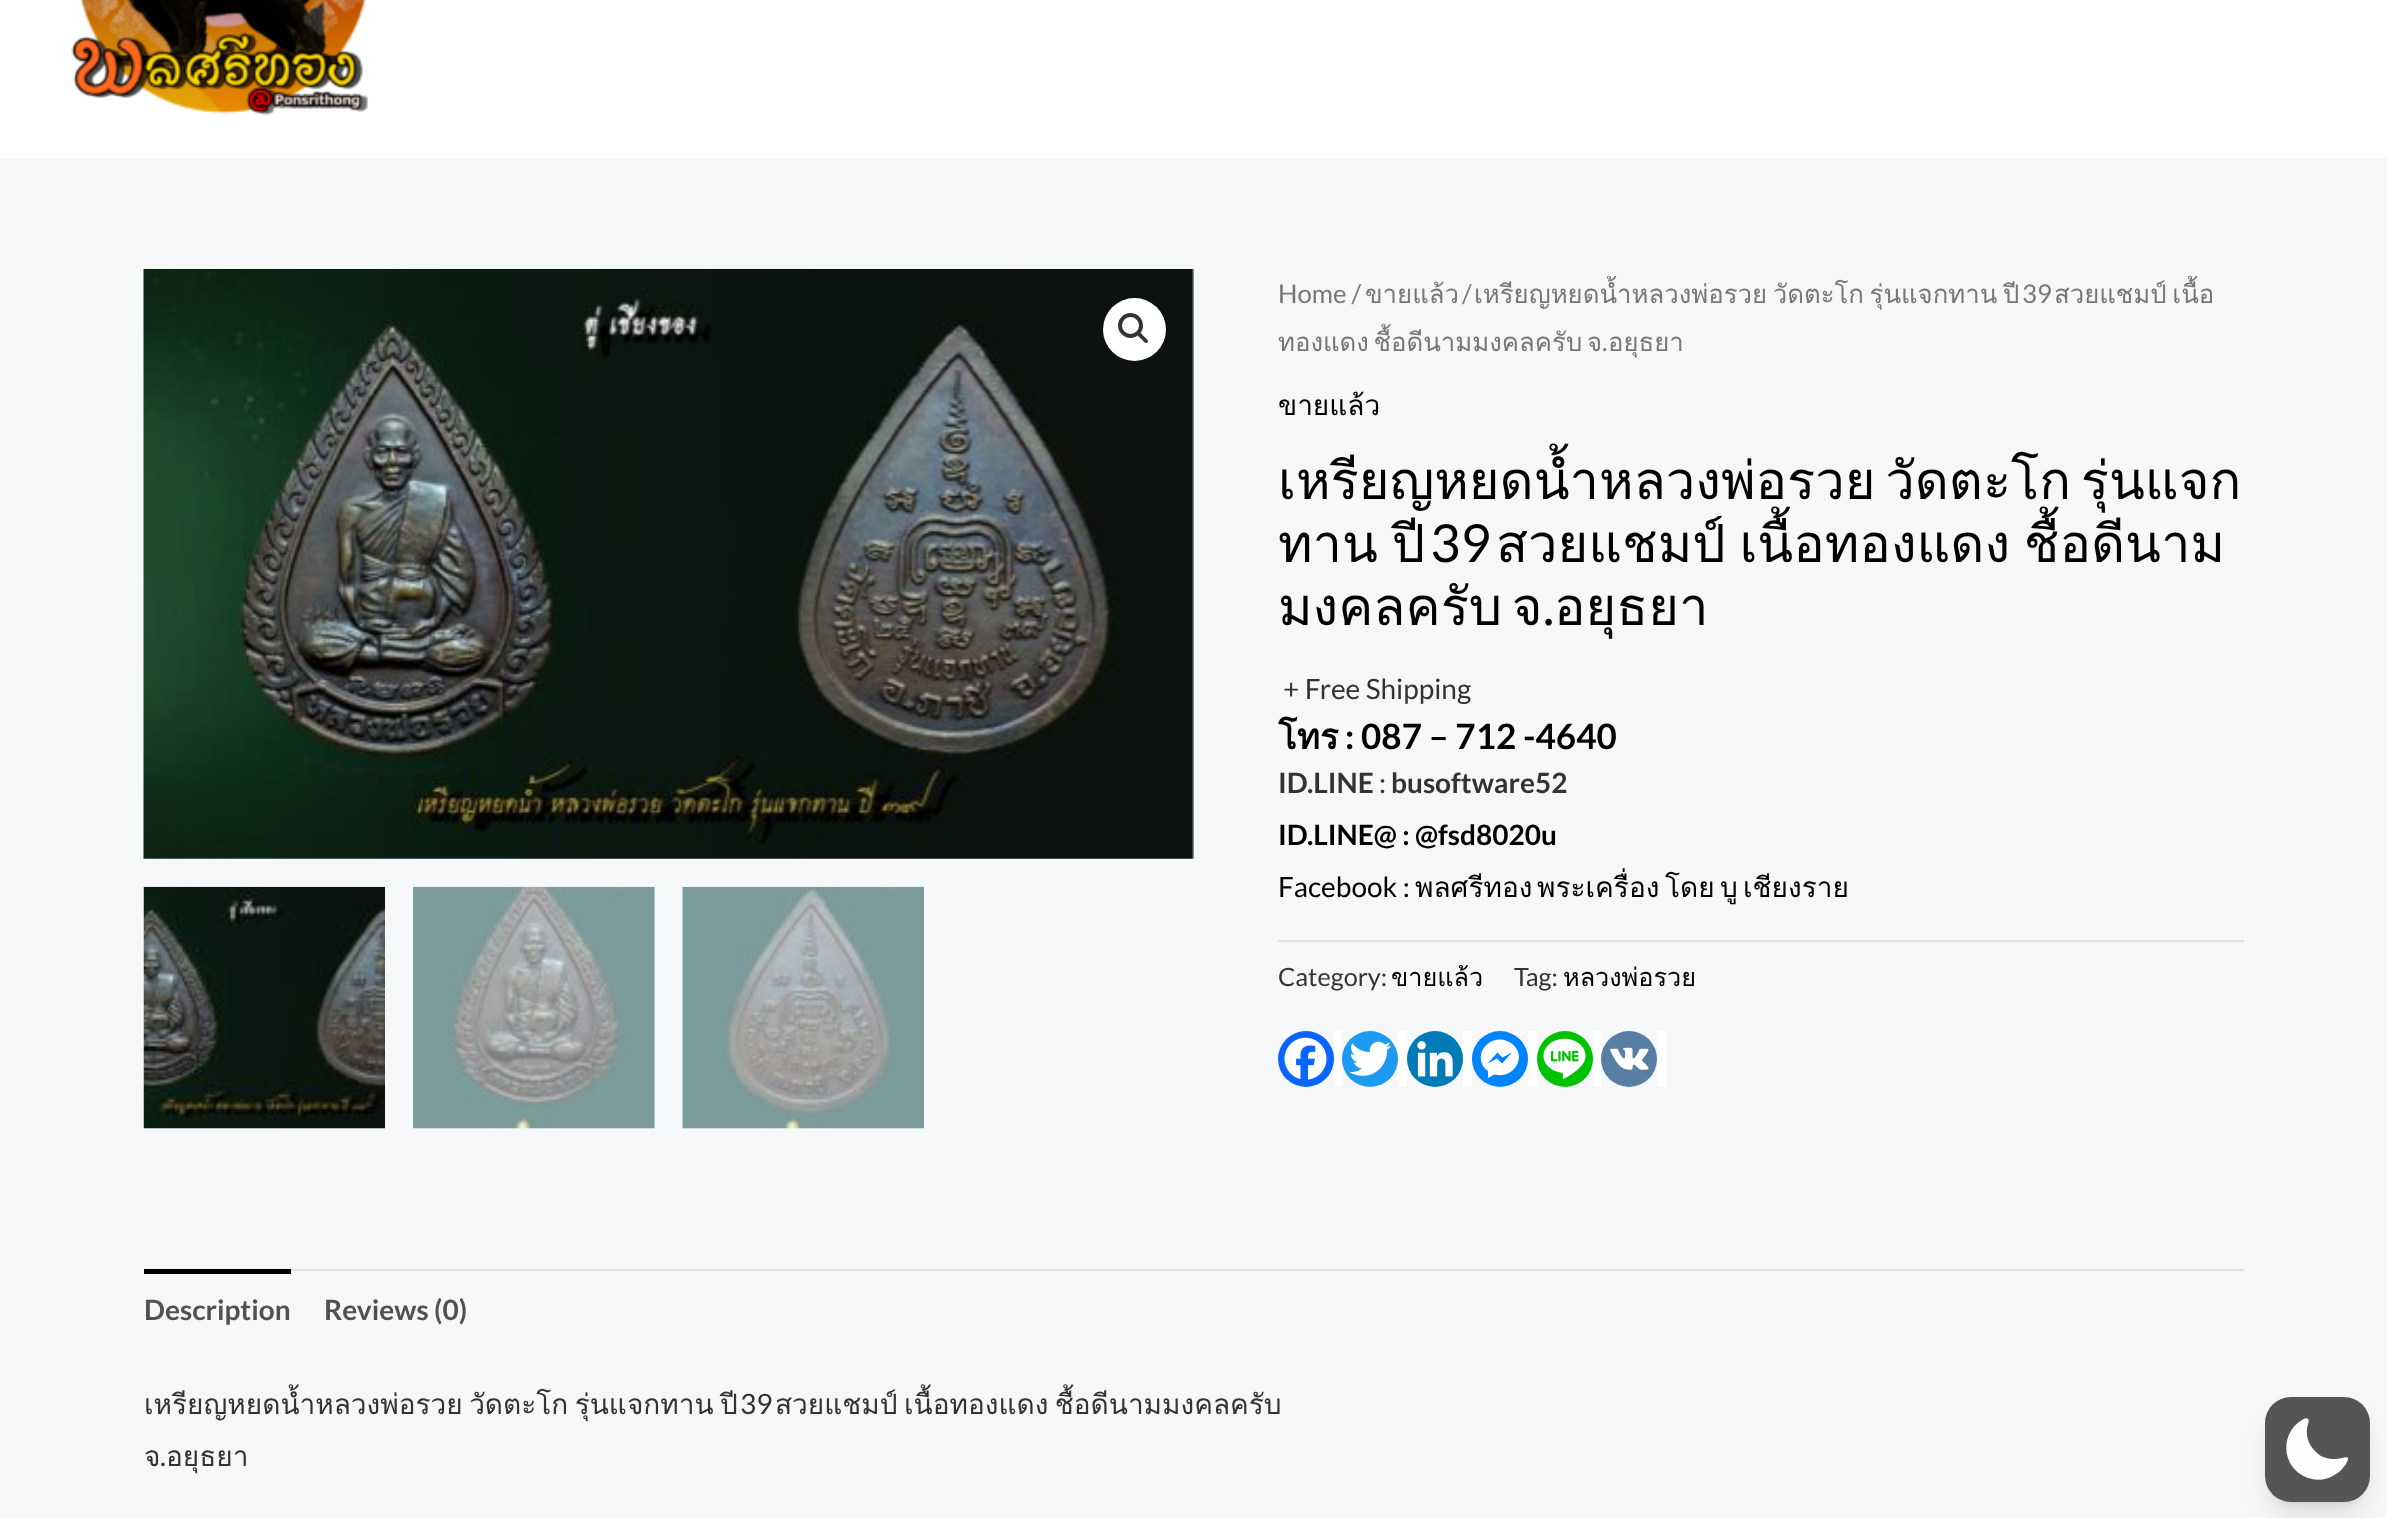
(async () => {
  const canvas = document.querySelector("canvas");
  canvas.width = 2387;
  canvas.height = 1518;
  const ctx = canvas.getContext("2d");
  ctx.miterLimit = 4;
  ctx.fontKerning = "normal";
  async function loadImage(src) {
    const img = new Image();
    img.src = src;
    await img.decode();
    return img;
  }
  let path;

  ctx.fillStyle = "#f5f7f9";
  ctx.fillRect(0, 0, 2387, 1518);
  ctx.fillStyle = "#ffffff";
  ctx.fillRect(0, 0, 2387, 158);
  ctx.drawImage(await loadImage("img/1.png"), 71, 0, 297, 116);
  ctx.drawImage(await loadImage("img/2.png"), 143, 269, 1051, 590);
  ctx.beginPath();
  ctx.arc(1134.5, 329.5, 31.5, 0, Math.PI * 2);
  ctx.fill();
  ctx.beginPath();
  ctx.arc(1130.5, 325.5, 10.5, 0, Math.PI * 2);
  ctx.strokeStyle = "#333333";
  ctx.lineWidth = 4;
  ctx.stroke();
  ctx.fillStyle = "#333333";
  path = new Path2D("M1138 333C1140 331 1143 335.5 1144 336.5C1145 337.5 1149.5 340.5 1147.5 342.5C1145.5 344.5 1142.5 340 1141.5 339C1140.5 338 1136 335 1138 333Z");
  ctx.fill(path);
  ctx.drawImage(await loadImage("img/3.png"), 143, 886, 242, 243);
  ctx.drawImage(await loadImage("img/4.png"), 413, 886, 242, 243);
  ctx.drawImage(await loadImage("img/5.png"), 682, 886, 242, 243);
  ctx.fillStyle = "#e2e2e2";
  ctx.fillRect(1278, 940, 966, 2);
  ctx.fillStyle = "#ffffff";
  ctx.fillRect(1334, 1031, 8, 56);
  ctx.fillStyle = "#0866ff";
  ctx.beginPath();
  ctx.arc(1306, 1059, 28, 0, Math.PI * 2);
  ctx.fill();
  ctx.drawImage(await loadImage("img/6.png"), 1284, 1037, 43, 43);
  ctx.fillStyle = "#ffffff";
  ctx.fillRect(1398, 1031, 9, 56);
  ctx.fillStyle = "#1d9bf0";
  ctx.beginPath();
  ctx.arc(1370, 1059, 28, 0, Math.PI * 2);
  ctx.fill();
  ctx.drawImage(await loadImage("img/7.png"), 1349, 1041, 43, 35);
  ctx.fillStyle = "#ffffff";
  ctx.fillRect(1463, 1031, 9, 56);
  ctx.fillStyle = "#007bb5";
  ctx.beginPath();
  ctx.arc(1435, 1059, 28, 0, Math.PI * 2);
  ctx.fill();
  ctx.drawImage(await loadImage("img/8.png"), 1417, 1041, 36, 36);
  ctx.fillStyle = "#ffffff";
  ctx.fillRect(1528, 1031, 9, 56);
  ctx.fillStyle = "#0084ff";
  ctx.beginPath();
  ctx.arc(1500, 1059, 28, 0, Math.PI * 2);
  ctx.fill();
  ctx.fillStyle = "#ffffff";
  path = new Path2D("M1500 1039.5C1482.5 1039.5 1473.5 1060.5 1488 1071V1078L1494.5 1074.5C1512 1079.5 1528 1058.5 1513 1044.5C1509.5 1041.5 1504.5 1039.5 1500 1039.5M1502 1063.5L1497 1058.5L1487.5 1063.5L1497.5 1052.5L1502.5 1057.5L1512 1052.5Z");
  ctx.fill(path);
  ctx.fillRect(1593, 1031, 8, 56);
  ctx.fillStyle = "#00c300";
  ctx.beginPath();
  ctx.arc(1565, 1059, 28, 0, Math.PI * 2);
  ctx.fill();
  ctx.drawImage(await loadImage("img/9.png"), 1543, 1038, 43, 41);
  ctx.fillStyle = "#ffffff";
  ctx.fillRect(1657, 1031, 9, 56);
  ctx.fillStyle = "#587ea3";
  ctx.beginPath();
  ctx.arc(1629, 1059, 28, 0, Math.PI * 2);
  ctx.fill();
  ctx.drawImage(await loadImage("img/10.png"), 1610, 1047, 39, 23);
  ctx.fillStyle = "#e2e2e2";
  ctx.fillRect(291, 1269, 1953, 2);
  ctx.fillStyle = "#000000";
  ctx.fillRect(144, 1269, 147, 5);
  ctx.fillStyle = "rgba(0, 0, 0, 0.1)";
  ctx.filter = "blur(5px)";
  ctx.beginPath();
  ctx.roundRect(2272, 1411, 91, 91, 19);
  ctx.fill();
  ctx.filter = "none";
  ctx.filter = "blur(13px)";
  ctx.beginPath();
  ctx.roundRect(2270, 1419, 94, 95, 21);
  ctx.fill();
  ctx.filter = "none";
  ctx.fillStyle = "#555555";
  ctx.beginPath();
  ctx.roundRect(2265, 1397, 105, 105, 26);
  ctx.fill();
  ctx.fillStyle = "#fefefe";
  path = new Path2D("M2308 1419C2310 1420 2307 1426 2307 1429C2306 1437 2309 1445 2315 1451C2320 1457 2327 1459 2334 1459C2340 1460 2353 1452 2346 1464C2343 1468 2340 1472 2336 1474C2329 1479 2320 1481 2312 1479C2283 1473 2277 1435 2302 1420C2303 1419 2306 1417 2308 1419Z");
  ctx.fill(path, "evenodd");
  ctx.font = "25.75px Lato";
  ctx.fillStyle = "#777777";
  ctx.fillText("Home /", 1278, 303);
  ctx.font = "25.75px Loma";
  ctx.fillText("ขายแล้ว", 1365, 303);
  ctx.font = "25.75px Lato";
  ctx.fillText("/", 1462, 303);
  ctx.wordSpacing = "-3px";
  ctx.font = "25.75px Loma";
  ctx.fillText("เหรียญหยดน้ำหลวงพ่อรวย วัดตะโก รุ่นแจกทาน ปี", 1474, 303);
  ctx.wordSpacing = "0px";
  ctx.font = "25.75px Lato";
  ctx.fillText("39", 2022, 303);
  ctx.wordSpacing = "-3px";
  ctx.font = "25.75px Loma";
  ctx.fillText("สวยแชมป์ เนื้อ", 2054, 303);
  ctx.wordSpacing = "-4px";
  ctx.fillText("ทองแดง ชื้อดีนามมงคลครับ จ", 1278, 351);
  ctx.wordSpacing = "0px";
  ctx.font = "25.75px Lato";
  ctx.fillText(".", 1602, 351);
  ctx.font = "25.75px Loma";
  ctx.fillText("อยุธยา", 1608, 351);
  ctx.font = "28px Loma";
  ctx.fillStyle = "#000000";
  ctx.fillText("ขายแล้ว", 1278, 415);
  ctx.wordSpacing = "-8px";
  ctx.font = "52.5px Loma";
  ctx.fillText("เหรียญหยดน้ำหลวงพ่อรวย วัดตะโก รุ่นแจก", 1278, 499);
  ctx.wordSpacing = "-4px";
  ctx.fillText("ทาน ปี", 1278, 562);
  ctx.wordSpacing = "0px";
  ctx.font = "52.5px Lato";
  ctx.fillText("39", 1430, 562);
  ctx.wordSpacing = "-4px";
  ctx.font = "52.5px Loma";
  ctx.fillText("สวยแชมป์ เนื้อทองแดง ชื้อดีนาม", 1496, 562);
  ctx.wordSpacing = "-8px";
  ctx.fillText("มงคลครับ จ", 1278, 625);
  ctx.wordSpacing = "0px";
  ctx.font = "52.5px Lato";
  ctx.fillText(".", 1543, 625);
  ctx.font = "52.5px Loma";
  ctx.fillText("อยุธยา", 1554, 625);
  ctx.font = "28px Lato";
  ctx.fillStyle = "#333333";
  ctx.fillText("+ Free Shipping", 1283, 699);
  ctx.font = "bold 35px Loma";
  ctx.fillStyle = "#000000";
  ctx.fillText("โทร", 1278, 749);
  ctx.font = "bold 35px Lato";
  ctx.fillText(": 087 – 712 -4640", 1345, 749);
  ctx.font = "bold 28px Lato";
  ctx.fillStyle = "#333333";
  ctx.fillText("ID.LINE", 1278, 793);
  ctx.font = "28px Lato";
  ctx.fillText(":", 1379, 793);
  ctx.font = "bold 28px Lato";
  ctx.fillText("busoftware52", 1391, 793);
  ctx.fillStyle = "#000000";
  ctx.fillText("ID.LINE@ : @fsd8020u", 1278, 845);
  ctx.font = "28px Lato";
  ctx.fillText("Facebook :", 1278, 897);
  ctx.font = "28px Loma";
  for (const [text, x, y] of [
    ["พลศรีทอง", 1415, 897],
    ["พระเครื่อง", 1537, 897],
    ["โดย", 1665, 897],
    ["บู", 1720, 897],
    ["เชียงราย", 1743, 897],
  ]) {
    ctx.fillText(text, x, y);
  }
  ctx.font = "25.25px Lato";
  ctx.fillStyle = "#333333";
  ctx.fillText("Category:", 1278, 986);
  ctx.font = "25.25px Loma";
  ctx.fillStyle = "#000000";
  ctx.fillText("ขายแล้ว", 1391, 986);
  ctx.font = "25.25px Lato";
  ctx.fillStyle = "#333333";
  ctx.fillText("Tag:", 1514, 986);
  ctx.font = "25.25px Loma";
  ctx.fillStyle = "#000000";
  ctx.fillText("หลวงพ่อรวย", 1563, 986);
  ctx.font = "bold 28px Lato";
  ctx.fillStyle = "#515151";
  ctx.fillText("Description", 144, 1320);
  ctx.fillText("Reviews (0)", 324, 1320);
  ctx.wordSpacing = "-3px";
  ctx.font = "28px Loma";
  ctx.fillStyle = "#333333";
  ctx.fillText("เหรียญหยดน้ำหลวงพ่อรวย วัดตะโก รุ่นแจกทาน ปี", 144, 1414);
  ctx.wordSpacing = "0px";
  ctx.font = "28px Lato";
  ctx.fillText("39", 740, 1414);
  ctx.wordSpacing = "-3px";
  ctx.font = "28px Loma";
  ctx.fillText("สวยแชมป์ เนื้อทองแดง ชื้อดีนามมงคลครับ", 775, 1414);
  ctx.wordSpacing = "0px";
  ctx.fillText("จ", 144, 1466);
  ctx.font = "28px Lato";
  ctx.fillText(".", 160, 1466);
  ctx.font = "28px Loma";
  ctx.fillText("อยุธยา", 166, 1466);
})();
